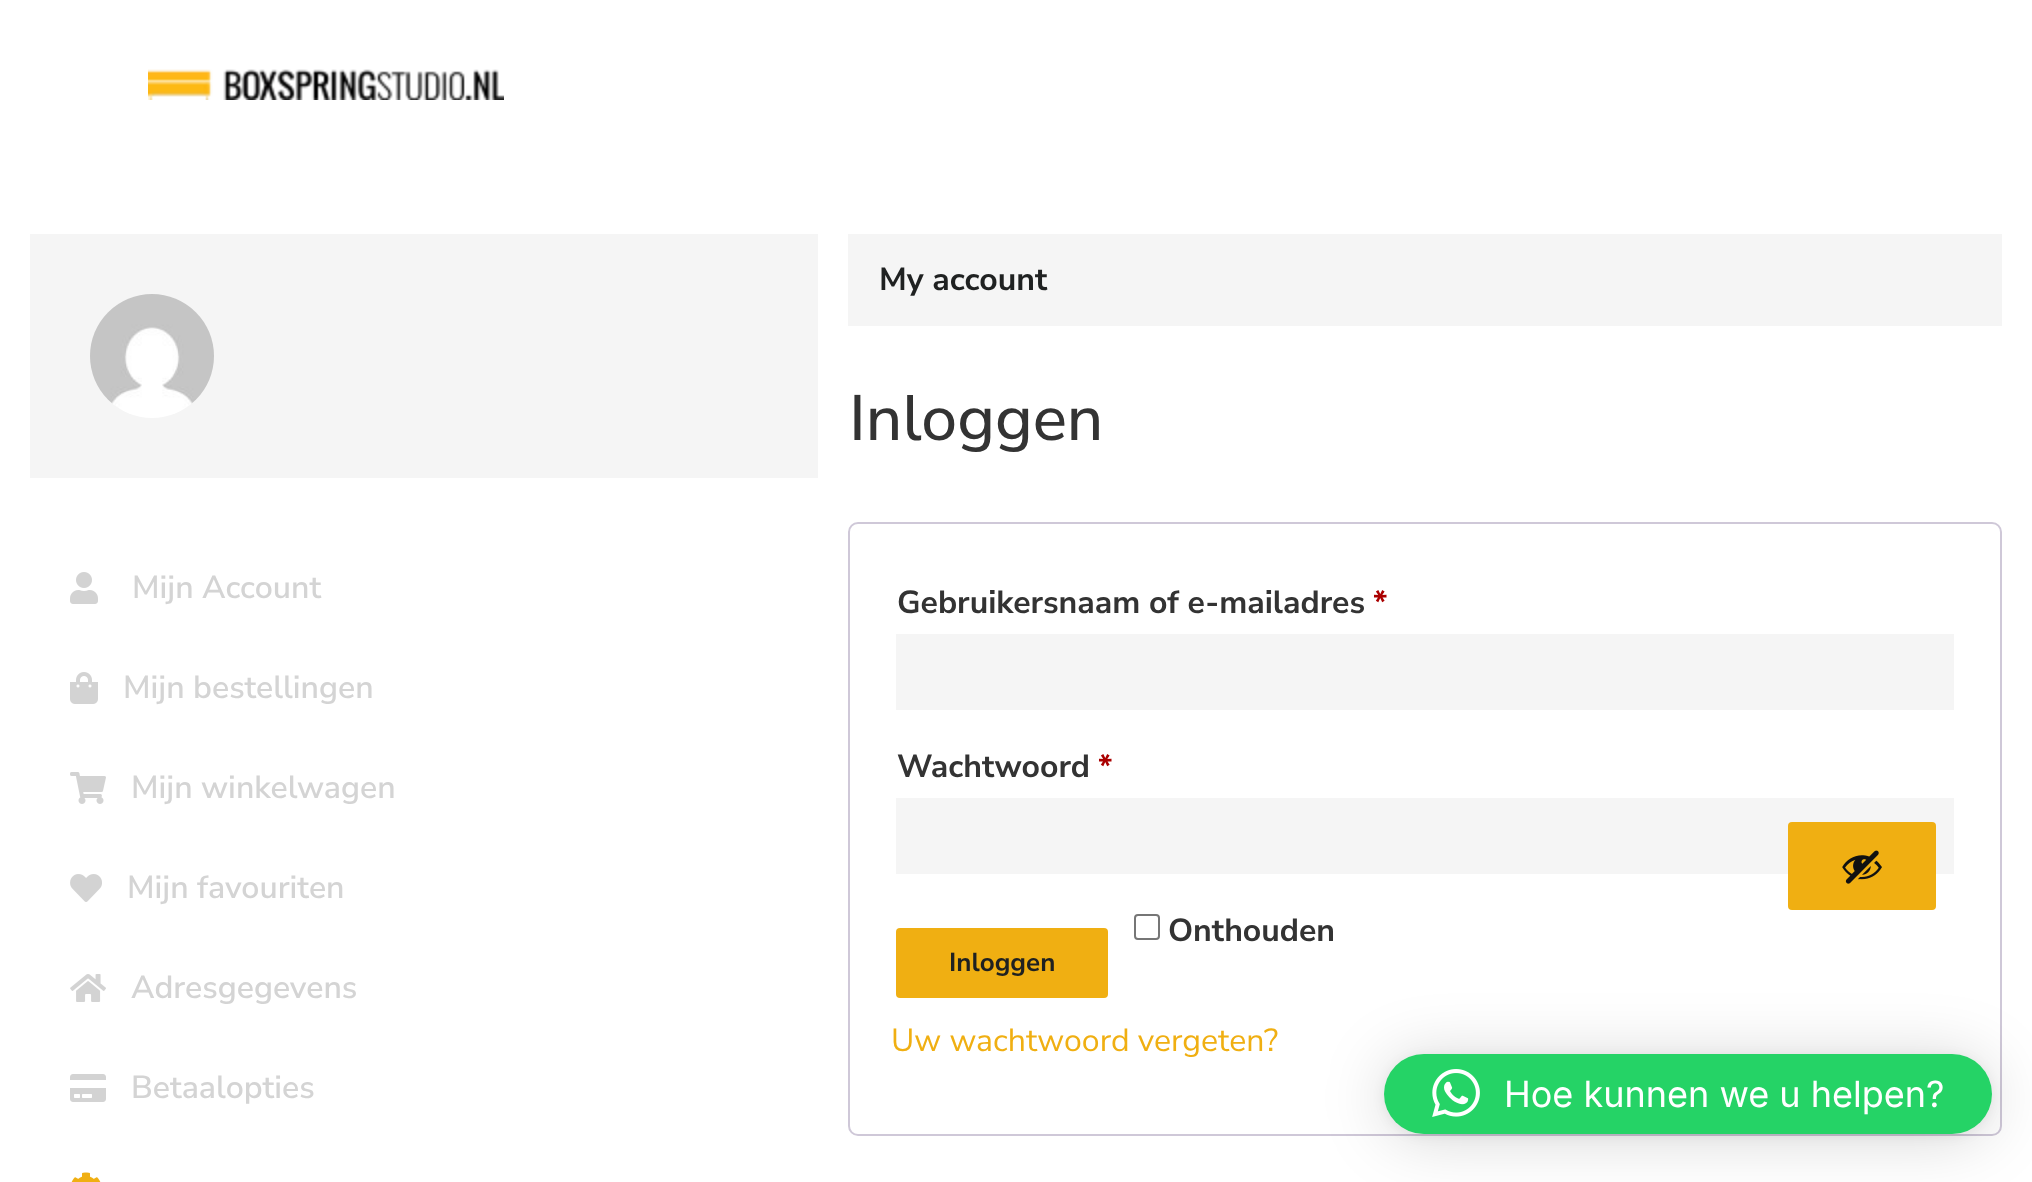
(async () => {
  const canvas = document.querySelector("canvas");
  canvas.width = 2032;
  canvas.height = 1182;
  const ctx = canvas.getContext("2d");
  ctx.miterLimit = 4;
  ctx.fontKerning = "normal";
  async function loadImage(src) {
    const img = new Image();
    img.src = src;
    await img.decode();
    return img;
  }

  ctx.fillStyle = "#ffffff";
  ctx.fillRect(0, 0, 2032, 1182);
  ctx.drawImage(await loadImage("img/1.png"), 148, 69, 356, 31);
  ctx.fillStyle = "#f5f5f5";
  ctx.fillRect(30, 234, 788, 244);
  ctx.drawImage(await loadImage("img/2.png"), 90, 294, 124, 124);
  ctx.drawImage(await loadImage("img/3.png"), 70, 572, 28, 32);
  ctx.drawImage(await loadImage("img/4.png"), 70, 672, 28, 32);
  ctx.drawImage(await loadImage("img/5.png"), 70, 772, 36, 32);
  ctx.drawImage(await loadImage("img/6.png"), 70, 874, 32, 28);
  ctx.drawImage(await loadImage("img/7.png"), 70, 974, 36, 28);
  ctx.drawImage(await loadImage("img/8.png"), 70, 1074, 36, 28);
  ctx.drawImage(await loadImage("img/9.png"), 71, 1172, 30, 10);
  ctx.fillRect(848, 234, 1154, 92);
  ctx.beginPath();
  ctx.roundRect(849, 523, 1152, 612, 9);
  ctx.strokeStyle = "#cfc8d8";
  ctx.lineWidth = 2;
  ctx.stroke();
  ctx.fillRect(896, 634, 1058, 76);
  ctx.fillRect(896, 798, 1058, 76);
  ctx.fillStyle = "#f0af12";
  ctx.beginPath();
  ctx.roundRect(1788, 822, 148, 88, 4);
  ctx.fill();
  ctx.drawImage(await loadImage("img/10.png"), 1842, 850, 40, 34);
  ctx.beginPath();
  ctx.roundRect(1135, 915, 24, 24, 3);
  ctx.strokeStyle = "#767676";
  ctx.stroke();
  ctx.beginPath();
  ctx.roundRect(896, 928, 212, 70, 4);
  ctx.fill();
  ctx.fillStyle = "rgba(0, 0, 0, 0.16)";
  ctx.filter = "blur(32px)";
  ctx.beginPath();
  ctx.roundRect(1384, 1058, 608, 80, 40);
  ctx.fill();
  ctx.filter = "none";
  ctx.fillStyle = "rgba(0, 0, 0, 0.06)";
  ctx.filter = "blur(6px)";
  ctx.beginPath();
  ctx.roundRect(1384, 1056, 608, 80, 40);
  ctx.fill();
  ctx.filter = "none";
  ctx.fillStyle = "#25d366";
  ctx.beginPath();
  ctx.roundRect(1384, 1054, 608, 80, 40);
  ctx.fill();
  ctx.drawImage(await loadImage("img/11.png"), 1432, 1069, 48, 48);
  ctx.font = "600 32px Nunito Sans";
  ctx.fillStyle = "#d4d4d4";
  for (const [text, x, y] of [
    ["Mijn Account", 132, 598],
    ["Mijn bestellingen", 123, 698],
    ["Mijn winkelwagen", 131, 798],
    ["Mijn favouriten", 127, 898],
    ["Adresgegevens", 131, 998],
    ["Betaalopties", 131, 1098],
  ]) {
    ctx.fillText(text, x, y);
  }
  ctx.font = "bold 32px Nunito Sans";
  ctx.fillStyle = "#1f2121";
  ctx.fillText("My account", 879, 290);
  ctx.font = "500 64px Nunito Sans";
  ctx.fillStyle = "#333333";
  ctx.fillText("Inloggen", 849, 440);
  ctx.font = "bold 32px Nunito Sans";
  ctx.fillText("Gebruikersnaam of e-mailadres", 897, 613);
  ctx.fillStyle = "#aa0000";
  ctx.fillText("*", 1373, 613);
  ctx.fillStyle = "#333333";
  ctx.fillText("Wachtwoord", 897, 777);
  ctx.fillStyle = "#aa0000";
  ctx.fillText("*", 1098, 777);
  ctx.fillStyle = "#333333";
  ctx.fillText("Onthouden", 1168, 941);
  ctx.font = "bold 26px Nunito Sans";
  ctx.fillStyle = "#1f2121";
  ctx.fillText("Inloggen", 949, 971);
  ctx.font = "32px Nunito Sans";
  ctx.fillStyle = "#f0af12";
  ctx.fillText("Uw wachtwoord vergeten?", 891, 1051);
  ctx.font = "36px Inter";
  ctx.fillStyle = "#ffffff";
  ctx.fillText("Hoe kunnen we u helpen?", 1504, 1107);
})();
